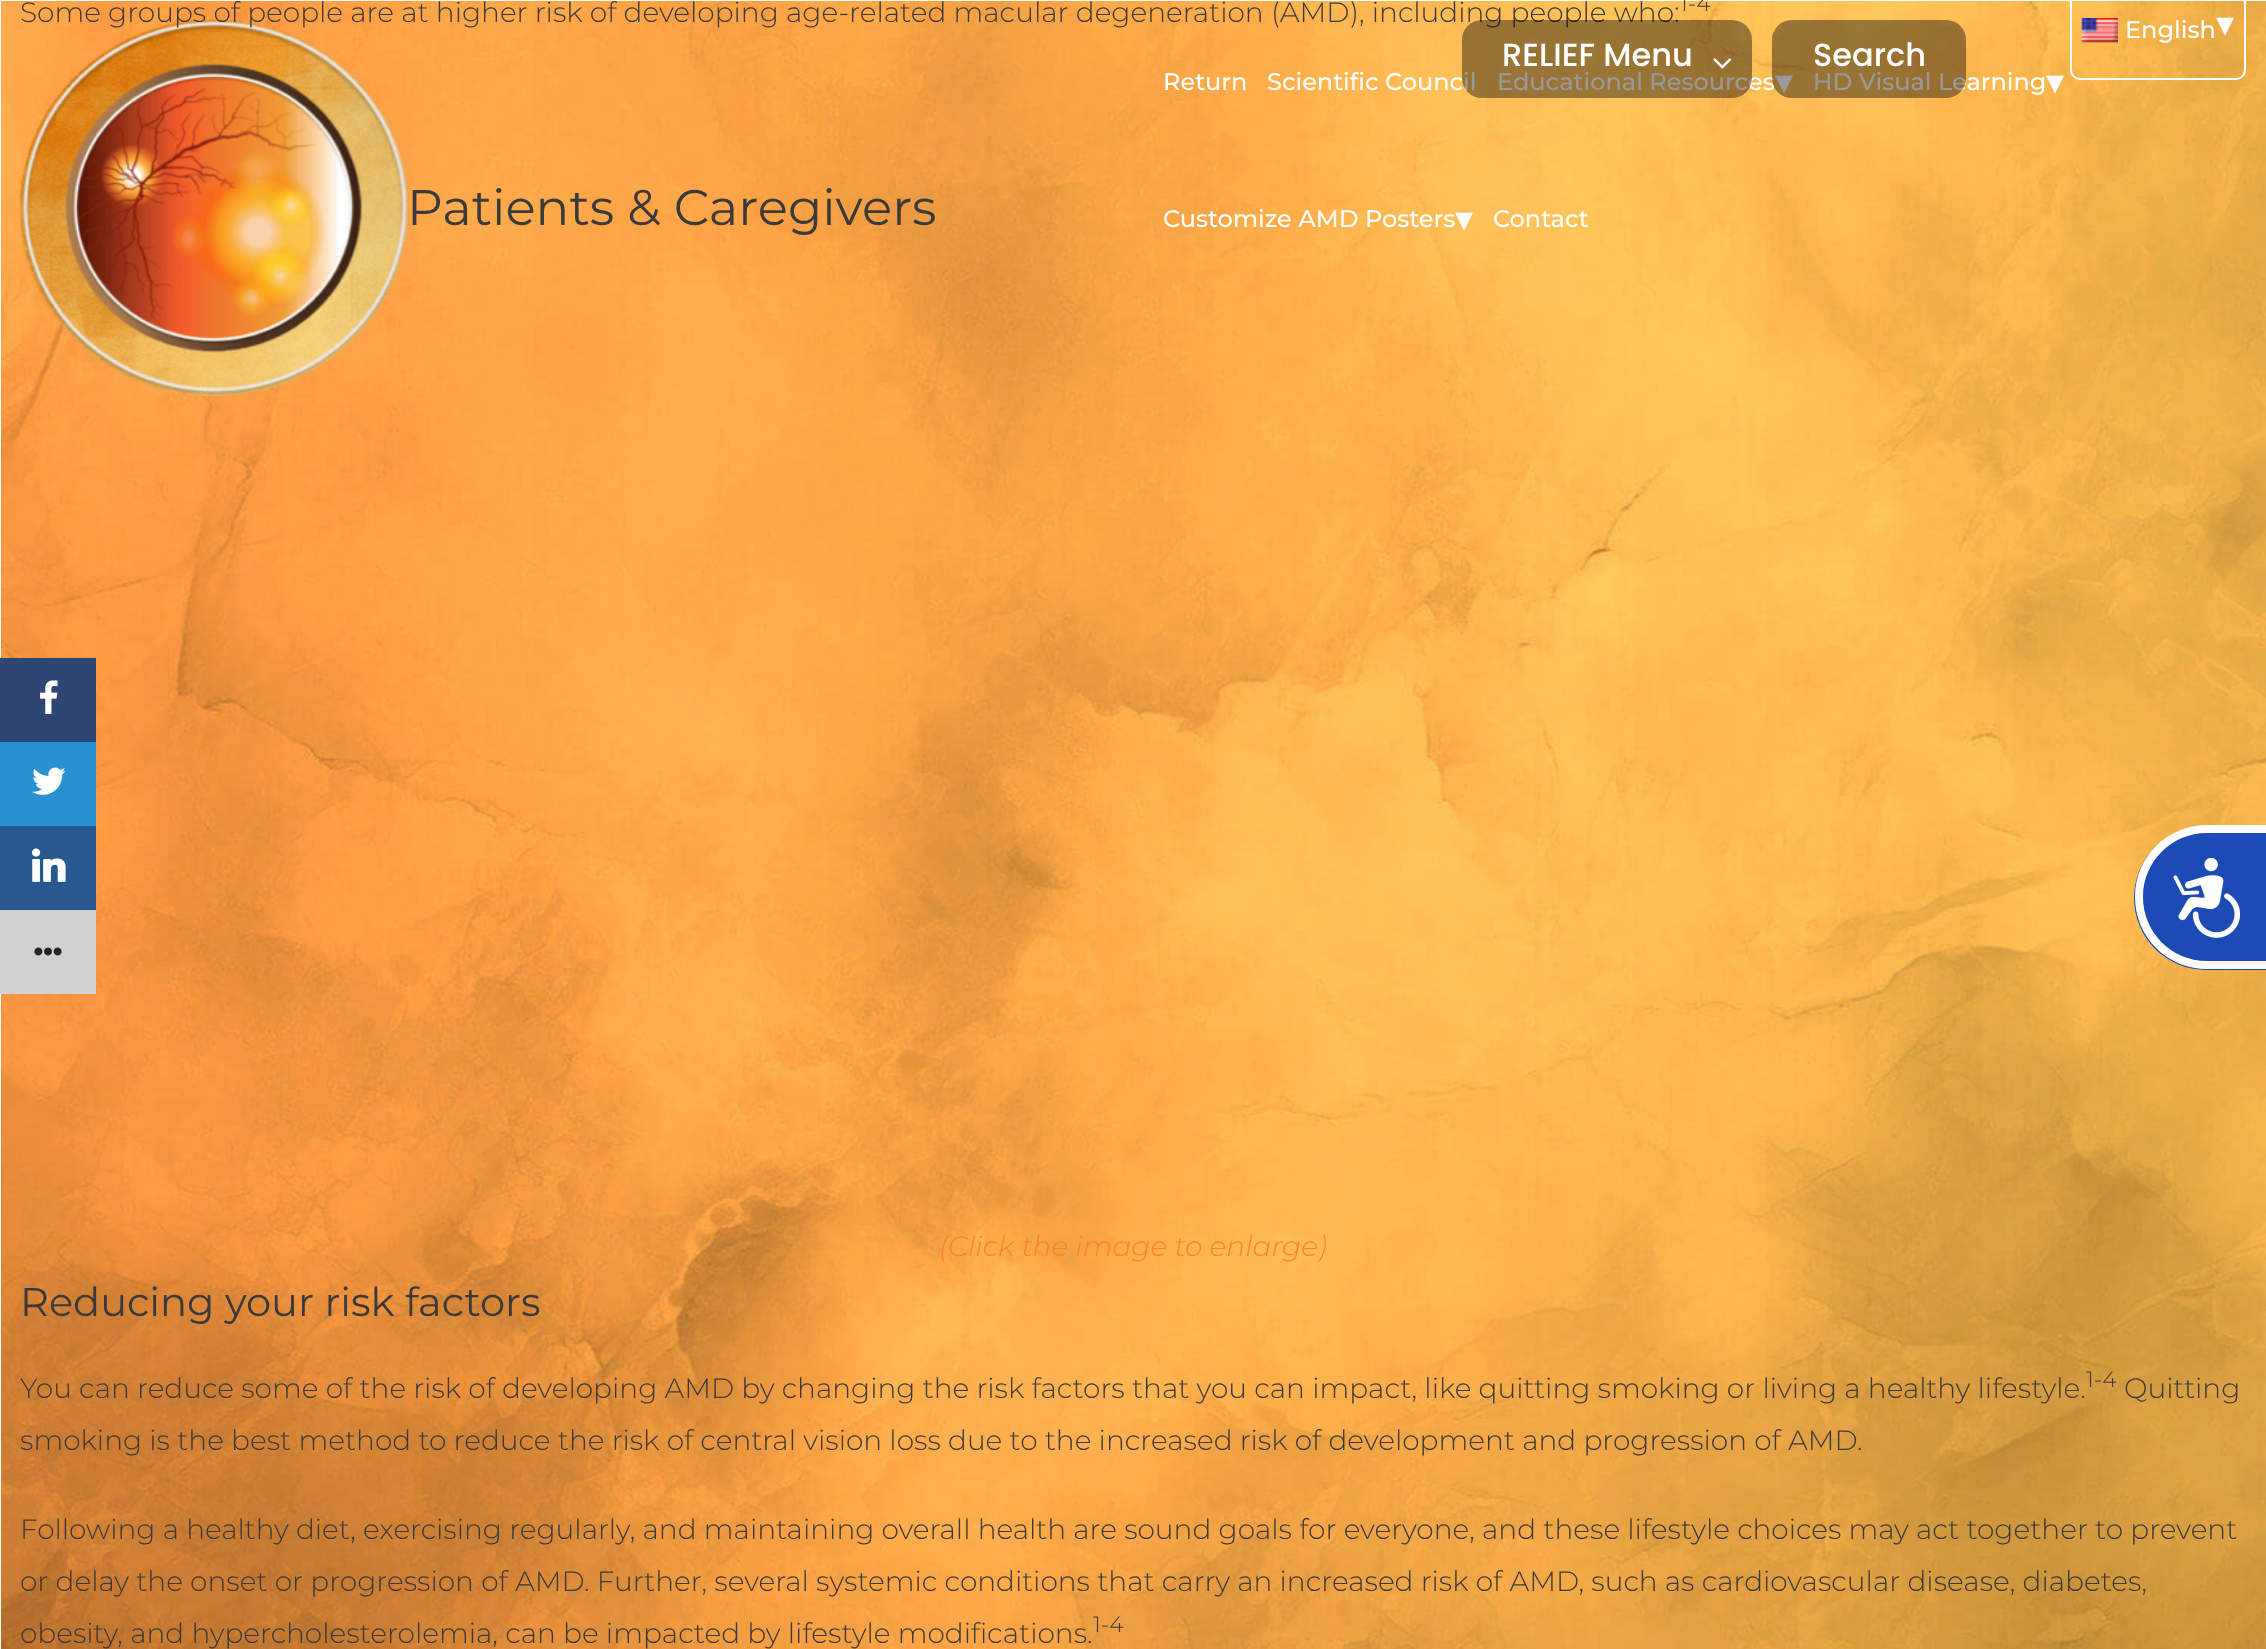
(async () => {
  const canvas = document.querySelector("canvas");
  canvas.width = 2266;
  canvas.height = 1649;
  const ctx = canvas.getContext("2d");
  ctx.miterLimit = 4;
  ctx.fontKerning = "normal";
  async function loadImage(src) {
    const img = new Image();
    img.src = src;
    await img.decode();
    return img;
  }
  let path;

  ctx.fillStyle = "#ffffff";
  ctx.fillRect(0, 0, 2266, 1649);
  ctx.drawImage(await loadImage("img/3.png"), 1, 1, 2265, 1648);
  ctx.drawImage(await loadImage("img/1.png"), 20, 20, 388, 376);
  ctx.beginPath();
  ctx.roundRect(2071, -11, 174, 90, 9);
  ctx.strokeStyle = "#ffffff";
  ctx.lineWidth = 2;
  ctx.stroke();
  ctx.drawImage(await loadImage("img/2.png"), 2081, 18, 37, 25);
  ctx.fillStyle = "#2f4574";
  ctx.fillRect(0, 658, 96, 84);
  ctx.drawImage(await loadImage("img/5.png"), 40, 680, 18, 34);
  ctx.fillStyle = "#2791d1";
  ctx.fillRect(0, 742, 96, 84);
  ctx.drawImage(await loadImage("img/6.png"), 32, 767, 34, 28);
  ctx.fillStyle = "#28588f";
  ctx.fillRect(0, 826, 96, 84);
  ctx.drawImage(await loadImage("img/7.png"), 32, 848, 34, 34);
  ctx.fillStyle = "#d1d1d1";
  ctx.fillRect(0, 910, 96, 84);
  ctx.drawImage(await loadImage("img/8.png"), 34, 947, 28, 9);
  ctx.fillStyle = "#1c4bb6";
  ctx.beginPath();
  ctx.roundRect(2134, 826, 132, 144, [72, 0, 0, 72]);
  ctx.fill();
  ctx.fillStyle = "#ffffff";
  path = new Path2D("M2207 825H2266V969H2207C2167 969 2135 937 2135 897C2135 857 2167 825 2207 825ZM2207 833H2266V961H2207C2171 961 2143 932 2143 897C2143 862 2171 833 2207 833Z");
  ctx.fill(path, "evenodd");
  ctx.drawImage(await loadImage("img/9.png"), 2173, 858, 68, 80);
  ctx.font = "300 28px Montserrat";
  ctx.fillStyle = "#3a3a3a";
  ctx.fillText("Some groups of people are at higher risk of developing age-related macular degeneration (AMD), including people who:", 20, 22);
  ctx.font = "300 22px Montserrat";
  ctx.fillText("1-4", 1680, 11);
  ctx.font = "italic 300 28px Montserrat";
  ctx.fillStyle = "#ff802b";
  ctx.fillText("(Click the image to enlarge)", 939, 1256);
  ctx.font = "40px Montserrat";
  ctx.fillStyle = "#3a3a3a";
  ctx.fillText("Reducing your risk factors", 20, 1316);
  ctx.font = "300 28px Montserrat";
  ctx.fillText("You can reduce some of the risk of developing AMD by changing the risk factors that you can impact, like quitting smoking or living a healthy lifestyle.", 20, 1398);
  ctx.font = "300 22px Montserrat";
  ctx.fillText("1-4", 2086, 1387);
  ctx.font = "300 28px Montserrat";
  for (const [text, x, y] of [
    ["Quitting", 2124, 1398],
    ["smoking is the best method to reduce the risk of central vision loss due to the increased risk of development and progression of AMD.", 20, 1450],
    ["Following a healthy diet, exercising regularly, and maintaining overall health are sound goals for everyone, and these lifestyle choices may act together to prevent", 20, 1539],
    ["or delay the onset or progression of AMD. Further, several systemic conditions that carry an increased risk of AMD, such as cardiovascular disease, diabetes,", 20, 1591],
    ["obesity, and hypercholesterolemia, can be impacted by lifestyle modifications.", 20, 1643],
  ]) {
    ctx.fillText(text, x, y);
  }
  ctx.font = "300 22px Montserrat";
  ctx.fillText("1-4", 1093, 1632);
  ctx.font = "50px Montserrat";
  ctx.fillText("Patients & Caregivers", 407, 225);
  ctx.font = "500 24px Montserrat";
  ctx.fillStyle = "#ffffff";
  ctx.fillText("English", 2125, 38);
  ctx.font = "36px DejaVu Sans";
  ctx.fillText("▾", 2216, 36);
  ctx.font = "500 24px Montserrat";
  for (const [text, x, y] of [
    ["Return", 1163, 90],
    ["Scientific Council", 1267, 90],
    ["Educational Resources", 1497, 90],
  ]) {
    ctx.fillText(text, x, y);
  }
  ctx.font = "36px DejaVu Sans";
  ctx.fillText("▾", 1775, 94);
  ctx.font = "500 24px Montserrat";
  ctx.fillText("HD Visual Learning", 1813, 90);
  ctx.font = "36px DejaVu Sans";
  ctx.fillText("▾", 2046, 94);
  ctx.font = "500 24px Montserrat";
  ctx.fillText("Customize AMD Posters", 1163, 227);
  ctx.font = "36px DejaVu Sans";
  ctx.fillText("▾", 1455, 231);
  ctx.font = "500 24px Montserrat";
  ctx.fillText("Contact", 1493, 227);
  ctx.fillStyle = "rgba(0, 0, 0, 0.4)";
  ctx.beginPath();
  ctx.roundRect(1462, 20, 290, 78, 20);
  ctx.fill();
  ctx.font = "500 32px Poppins";
  ctx.fillStyle = "#ffffff";
  ctx.fillText("RELIEF Menu", 1502, 66);
  ctx.drawImage(await loadImage("img/4.png"), 1713, 58, 19, 11);
  ctx.fillStyle = "rgba(0, 0, 0, 0.4)";
  ctx.beginPath();
  ctx.roundRect(1772, 20, 194, 78, 20);
  ctx.fill();
  ctx.fillStyle = "#ffffff";
  ctx.fillText("Search", 1813, 66);
})();
